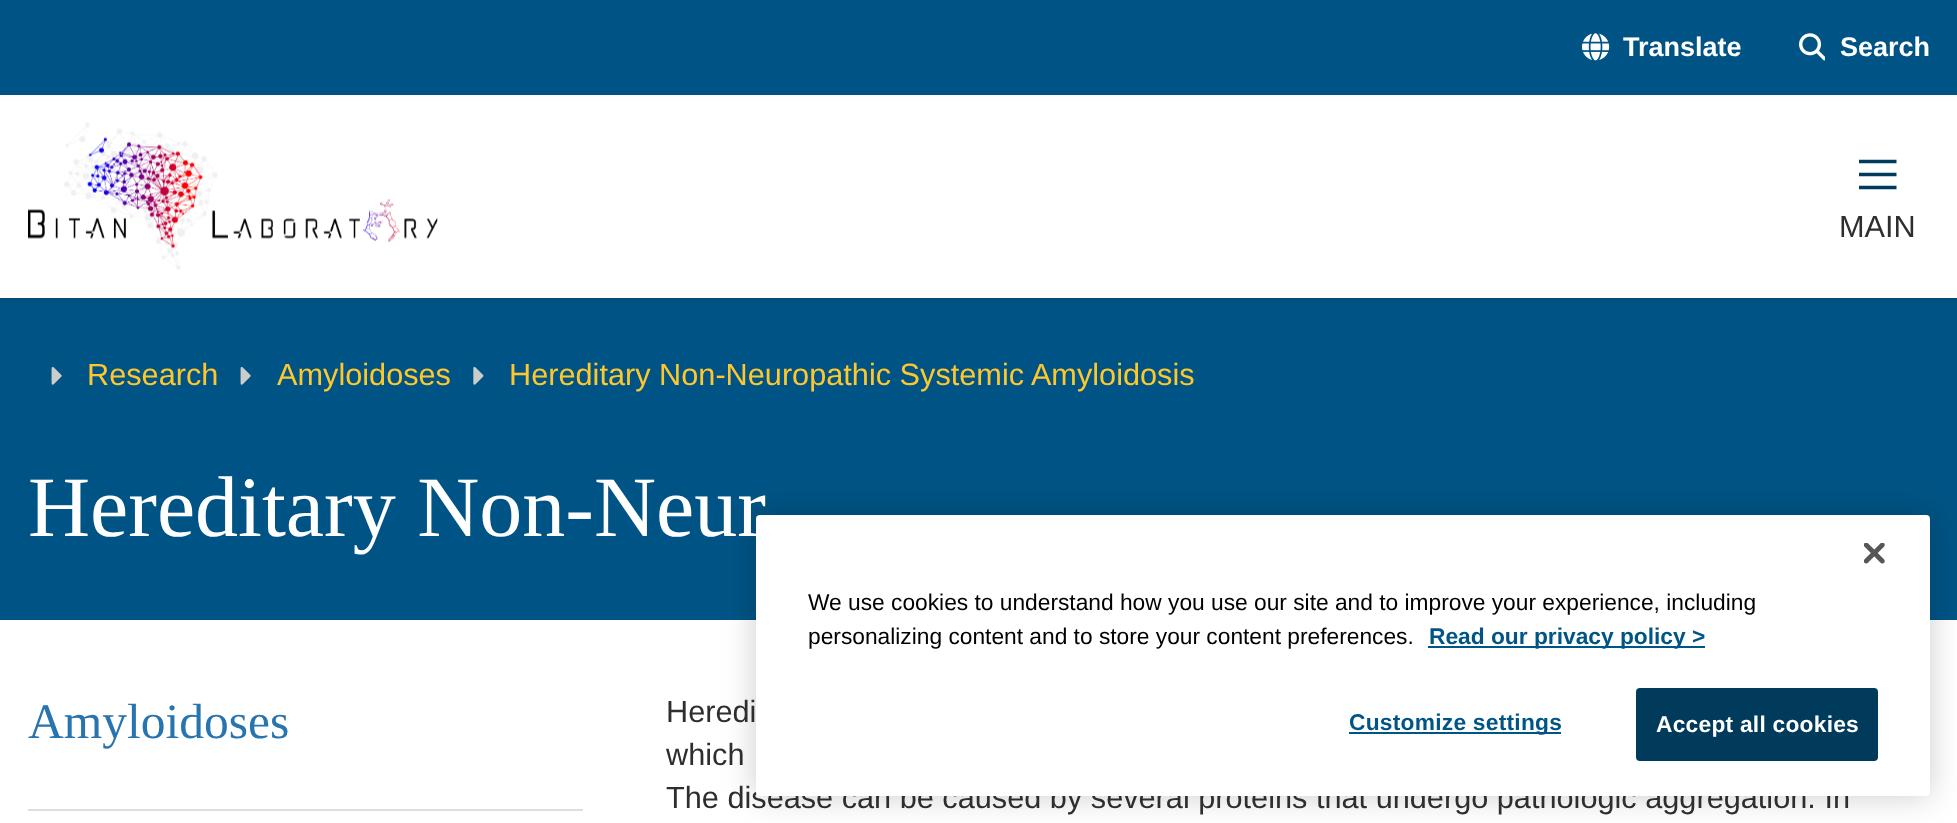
(async () => {
  const canvas = document.querySelector("canvas");
  canvas.width = 1957;
  canvas.height = 823;
  const ctx = canvas.getContext("2d");
  ctx.miterLimit = 4;
  ctx.fontKerning = "normal";
  async function loadImage(src) {
    const img = new Image();
    img.src = src;
    await img.decode();
    return img;
  }
  let path;

  ctx.fillStyle = "#ffffff";
  ctx.fillRect(0, 0, 1957, 823);
  ctx.fillStyle = "#005485";
  ctx.fillRect(0, 298, 1957, 322);
  ctx.fillStyle = "rgba(0, 0, 0, 0.1)";
  ctx.filter = "blur(2px)";
  ctx.beginPath();
  ctx.rect(2, 4, 1955, 294);
  ctx.fill();
  ctx.filter = "none";
  ctx.filter = "blur(2.5px)";
  ctx.beginPath();
  ctx.rect(0, 2, 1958, 297);
  ctx.fill();
  ctx.filter = "none";
  ctx.fillStyle = "#ffffff";
  ctx.fillRect(0, 95, 1957, 203);
  ctx.fillStyle = "#005485";
  ctx.fillRect(0, 0, 1957, 95);
  ctx.drawImage(await loadImage("img/1.png"), 1582, 33, 28, 28);
  ctx.drawImage(await loadImage("img/2.png"), 1799, 33, 26, 28);
  ctx.drawImage(await loadImage("img/3.png"), 28, 122, 410, 148);
  path = new Path2D("M1859 161.5H1896.5M1859 174.5H1896.5M1859 187.5H1896.5");
  ctx.strokeStyle = "#003a5c";
  ctx.lineWidth = 3.7;
  ctx.stroke(path);
  ctx.drawImage(await loadImage("img/4.png"), 51, 367, 11, 18);
  ctx.drawImage(await loadImage("img/4.png"), 240, 367, 11, 18);
  ctx.drawImage(await loadImage("img/5.png"), 473, 367, 11, 18);
  ctx.fillStyle = "#dedede";
  ctx.fillRect(28, 809, 555, 2);
  ctx.fillStyle = "rgba(0, 0, 0, 0.2)";
  ctx.filter = "blur(16px)";
  ctx.beginPath();
  ctx.roundRect(756, 515, 1174, 281, 4);
  ctx.fill();
  ctx.filter = "none";
  ctx.font = "bold 27px Liberation Sans";
  ctx.fillStyle = "#ffffff";
  ctx.fillText("Translate", 1623, 56);
  ctx.fillText("Search", 1840, 56);
  ctx.font = "30.7px Liberation Sans";
  ctx.fillStyle = "#2e2e2e";
  ctx.fillText("MAIN", 1839, 237);
  ctx.fillStyle = "#ffc72e";
  for (const [text, x, y] of [
    ["Research", 87, 385],
    ["Amyloidoses", 277, 385],
    ["Hereditary Non-Neuropathic Systemic Amyloidosis", 509, 385],
  ]) {
    ctx.fillText(text, x, y);
  }
  ctx.font = "86px Liberation Serif";
  ctx.fillStyle = "#ffffff";
  ctx.fillText("Hereditary Non-Neur", 28, 536);
  ctx.font = "49.5px Liberation Serif";
  ctx.fillStyle = "#2874af";
  ctx.fillText("Amyloidoses", 28, 738);
  ctx.font = "30.7px Liberation Sans";
  ctx.fillStyle = "#2e2e2e";
  for (const [text, x, y] of [
    ["Heredi", 666, 722],
    ["which", 666, 765],
    ["The disease can be caused by several proteins that undergo pathologic aggregation. In", 666, 808],
  ]) {
    ctx.fillText(text, x, y);
  }
  ctx.fillStyle = "#ffffff";
  ctx.beginPath();
  ctx.roundRect(756, 515, 1174, 281, 4);
  ctx.fill();
  ctx.drawImage(await loadImage("img/6.png"), 1864, 543, 21, 21);
  ctx.font = "22.75px Liberation Sans";
  ctx.fillStyle = "#000000";
  ctx.fillText("We use cookies to understand how you use our site and to improve your experience, including", 808, 610);
  ctx.fillText("personalizing content and to store your content preferences.", 808, 644);
  ctx.fillStyle = "#005587";
  ctx.fillRect(1428, 646, 277, 2);
  ctx.font = "bold 22.75px Liberation Sans";
  ctx.fillText("Read our privacy policy >", 1429, 644);
  ctx.fillRect(1349, 732, 212, 2);
  ctx.letterSpacing = "0.25px";
  ctx.fillText("Customize settings", 1349, 730);
  ctx.fillStyle = "#003b5c";
  ctx.beginPath();
  ctx.roundRect(1637, 689, 240, 71, 3);
  ctx.fill();
  ctx.strokeStyle = "#003b5c";
  ctx.lineWidth = 2;
  ctx.stroke();
  ctx.fillStyle = "#ffffff";
  ctx.fillText("Accept all cookies", 1656, 732);
})();
